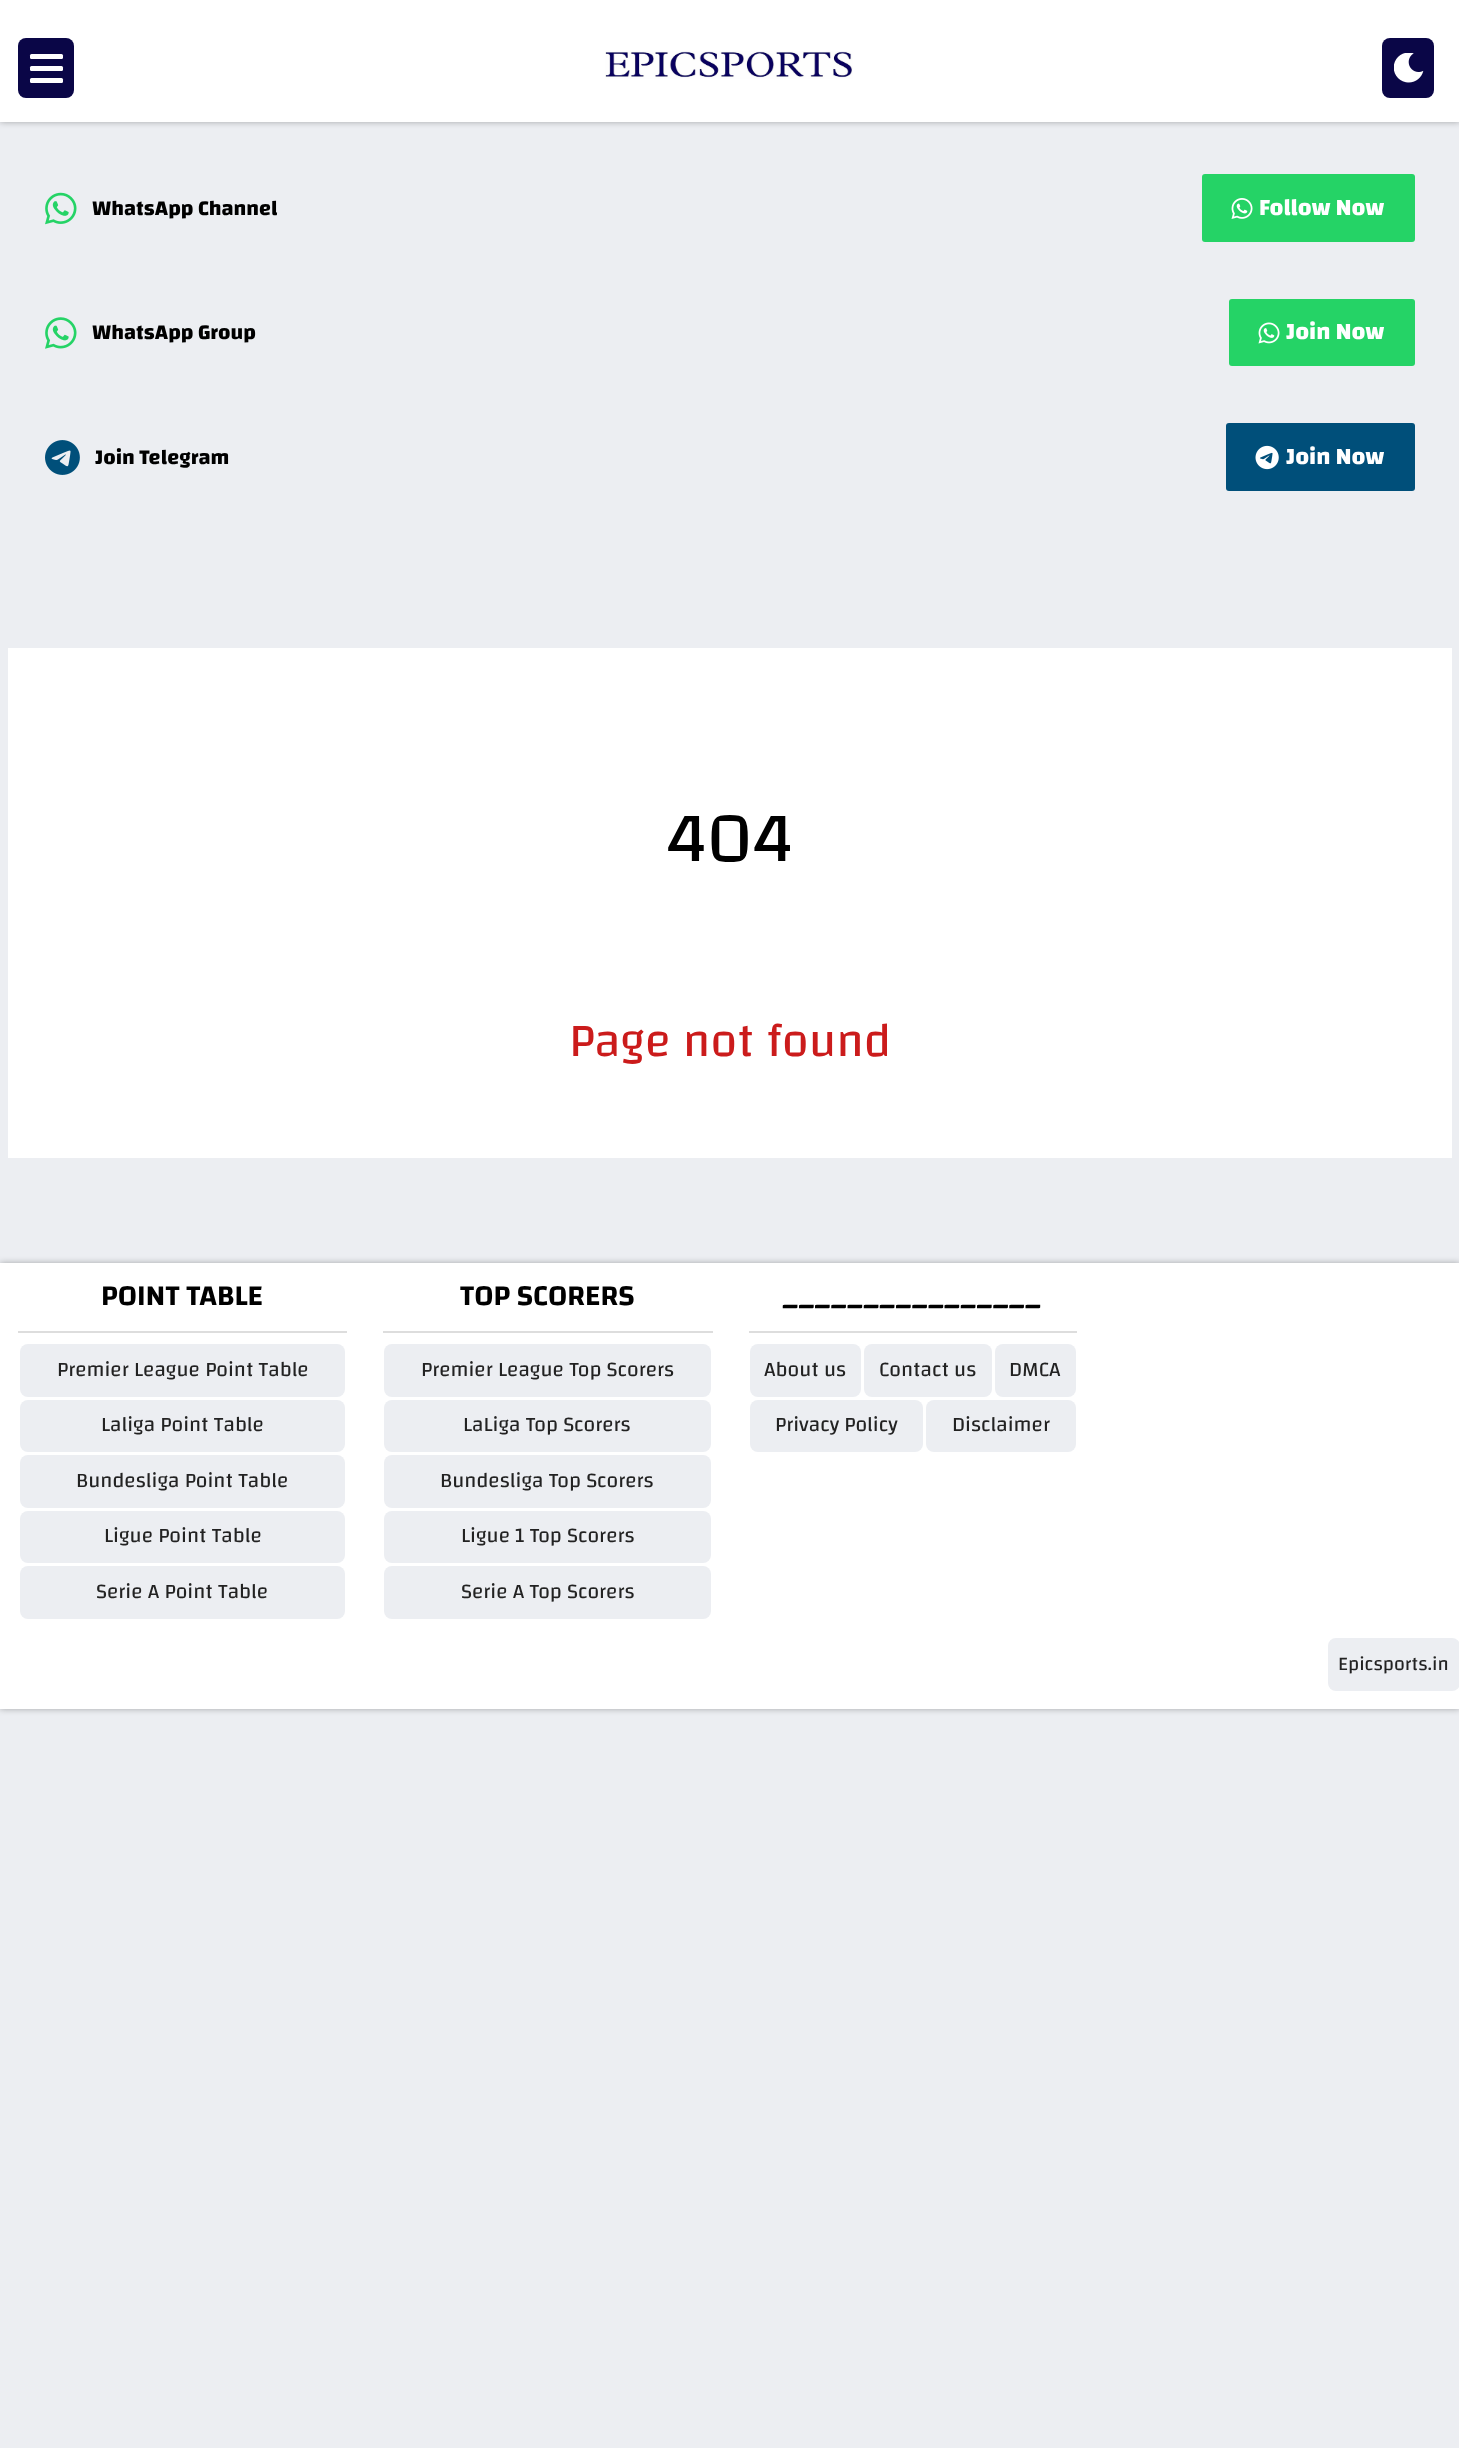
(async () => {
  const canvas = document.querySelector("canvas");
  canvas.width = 1459;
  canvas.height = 2448;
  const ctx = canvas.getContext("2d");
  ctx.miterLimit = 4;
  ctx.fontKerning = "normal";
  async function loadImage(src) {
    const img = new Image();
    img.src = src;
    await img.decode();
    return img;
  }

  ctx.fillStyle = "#eceef2";
  ctx.fillRect(0, 0, 1459, 2448);
  ctx.fillStyle = "rgba(0, 0, 0, 0.3)";
  ctx.filter = "blur(3px)";
  ctx.beginPath();
  ctx.rect(0, 0, 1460, 122);
  ctx.fill();
  ctx.filter = "none";
  ctx.fillStyle = "#ffffff";
  ctx.fillRect(0, 0, 1459, 122);
  ctx.fillStyle = "#0a0647";
  ctx.beginPath();
  ctx.roundRect(18, 38, 56, 60, 8);
  ctx.fill();
  ctx.fillStyle = "#ffffff";
  ctx.beginPath();
  ctx.roundRect(30, 54, 33, 5, 1.5);
  ctx.fill();
  ctx.beginPath();
  ctx.roundRect(30, 66, 33, 5, 1.5);
  ctx.fill();
  ctx.beginPath();
  ctx.roundRect(30, 78, 33, 5, 1.5);
  ctx.fill();
  ctx.fillStyle = "#0a0647";
  ctx.beginPath();
  ctx.roundRect(1382, 38, 52, 60, 8);
  ctx.fill();
  ctx.drawImage(await loadImage("img/1.png"), 1394, 53, 30, 30);
  ctx.drawImage(await loadImage("img/2.png"), 605, 51, 248, 28);
  ctx.drawImage(await loadImage("img/3.png"), 45, 192, 32, 33);
  ctx.fillStyle = "#25d366";
  ctx.beginPath();
  ctx.roundRect(1202, 174, 213, 68, 3);
  ctx.fill();
  ctx.drawImage(await loadImage("img/4.png"), 1231, 198, 22, 21);
  ctx.drawImage(await loadImage("img/5.png"), 45, 317, 32, 32);
  ctx.beginPath();
  ctx.roundRect(1229, 299, 186, 67, 3);
  ctx.fill();
  ctx.drawImage(await loadImage("img/6.png"), 1258, 322, 22, 22);
  ctx.drawImage(await loadImage("img/7.png"), 45, 440, 35, 35);
  ctx.fillStyle = "#004f7a";
  ctx.beginPath();
  ctx.roundRect(1226, 423, 189, 68, 3);
  ctx.fill();
  ctx.drawImage(await loadImage("img/8.png"), 1255, 445, 24, 25);
  ctx.fillStyle = "#ffffff";
  ctx.fillRect(8, 648, 1444, 510);
  ctx.fillStyle = "rgba(0, 0, 0, 0.3)";
  ctx.filter = "blur(3px)";
  ctx.beginPath();
  ctx.rect(0, 1263, 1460, 446);
  ctx.fill();
  ctx.filter = "none";
  ctx.fillStyle = "#ffffff";
  ctx.fillRect(0, 1263, 1459, 446);
  ctx.fillStyle = "#dddddd";
  ctx.fillRect(18, 1331, 329, 2);
  ctx.fillStyle = "#eceef2";
  ctx.beginPath();
  ctx.roundRect(20, 1344, 325, 53, 8);
  ctx.fill();
  ctx.beginPath();
  ctx.roundRect(20, 1400, 325, 52, 8);
  ctx.fill();
  ctx.beginPath();
  ctx.roundRect(20, 1455, 325, 53, 8);
  ctx.fill();
  ctx.beginPath();
  ctx.roundRect(20, 1511, 325, 52, 8);
  ctx.fill();
  ctx.beginPath();
  ctx.roundRect(20, 1566, 325, 53, 8);
  ctx.fill();
  ctx.fillStyle = "#dddddd";
  ctx.fillRect(383, 1331, 330, 2);
  ctx.fillStyle = "#eceef2";
  ctx.beginPath();
  ctx.roundRect(384, 1344, 327, 53, 8);
  ctx.fill();
  ctx.beginPath();
  ctx.roundRect(384, 1400, 327, 52, 8);
  ctx.fill();
  ctx.beginPath();
  ctx.roundRect(384, 1455, 327, 53, 8);
  ctx.fill();
  ctx.beginPath();
  ctx.roundRect(384, 1511, 327, 52, 8);
  ctx.fill();
  ctx.beginPath();
  ctx.roundRect(384, 1566, 327, 53, 8);
  ctx.fill();
  ctx.fillStyle = "#dddddd";
  ctx.fillRect(749, 1331, 328, 2);
  ctx.fillStyle = "#eceef2";
  ctx.beginPath();
  ctx.roundRect(750, 1344, 111, 53, 8);
  ctx.fill();
  ctx.beginPath();
  ctx.roundRect(864, 1344, 128, 53, 8);
  ctx.fill();
  ctx.beginPath();
  ctx.roundRect(995, 1344, 81, 53, 8);
  ctx.fill();
  ctx.beginPath();
  ctx.roundRect(750, 1400, 173, 52, 8);
  ctx.fill();
  ctx.beginPath();
  ctx.roundRect(926, 1400, 150, 52, 8);
  ctx.fill();
  ctx.beginPath();
  ctx.roundRect(1328, 1638, 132, 53, 8);
  ctx.fill();
  ctx.font = "bold 21.5px Changa";
  ctx.fillStyle = "#000000";
  ctx.fillText("WhatsApp Channel", 92, 215);
  ctx.font = "bold 24px Changa";
  ctx.fillStyle = "#ffffff";
  ctx.fillText("Follow Now", 1259, 215);
  ctx.font = "bold 21.5px Changa";
  ctx.fillStyle = "#000000";
  ctx.fillText("WhatsApp Group", 92, 339);
  ctx.font = "bold 24px Changa";
  ctx.fillStyle = "#ffffff";
  ctx.fillText("Join Now", 1286, 339);
  ctx.font = "bold 21.5px Changa";
  ctx.fillStyle = "#000000";
  ctx.fillText("Join Telegram", 95, 464);
  ctx.font = "bold 24px Changa";
  ctx.fillStyle = "#ffffff";
  ctx.fillText("Join Now", 1286, 464);
  ctx.font = "72px Changa";
  ctx.fillStyle = "#000000";
  ctx.fillText("404", 666, 861);
  ctx.font = "48px Changa";
  ctx.fillStyle = "#cb1b1b";
  ctx.fillText("Page not found", 569, 1056);
  ctx.font = "600 29.75px Changa";
  ctx.fillStyle = "#000000";
  ctx.fillText("POINT TABLE", 101, 1305);
  ctx.font = "21px Changa";
  ctx.fillStyle = "#222222";
  for (const [text, x, y] of [
    ["Premier League Point Table", 57, 1376],
    ["Laliga Point Table", 101, 1431],
    ["Bundesliga Point Table", 76, 1487],
    ["Ligue Point Table", 104, 1542],
    ["Serie A Point Table", 96, 1598],
  ]) {
    ctx.fillText(text, x, y);
  }
  ctx.font = "600 29.75px Changa";
  ctx.fillStyle = "#000000";
  ctx.fillText("TOP SCORERS", 460, 1305);
  ctx.font = "21px Changa";
  ctx.fillStyle = "#222222";
  for (const [text, x, y] of [
    ["Premier League Top Scorers", 421, 1376],
    ["LaLiga Top Scorers", 463, 1431],
    ["Bundesliga Top Scorers", 440, 1487],
    ["Ligue 1 Top Scorers", 461, 1542],
    ["Serie A Top Scorers", 461, 1598],
  ]) {
    ctx.fillText(text, x, y);
  }
  ctx.font = "600 29.75px Changa";
  ctx.fillStyle = "#000000";
  ctx.fillText("________________", 782, 1305);
  ctx.font = "21px Changa";
  ctx.fillStyle = "#222222";
  for (const [text, x, y] of [
    ["About us", 764, 1376],
    ["Contact us", 879, 1376],
    ["DMCA", 1009, 1376],
    ["Privacy Policy", 775, 1431],
    ["Disclaimer", 952, 1431],
  ]) {
    ctx.fillText(text, x, y);
  }
  ctx.font = "19.5px Changa";
  ctx.fillText("Epicsports.in", 1338, 1670);
})();
